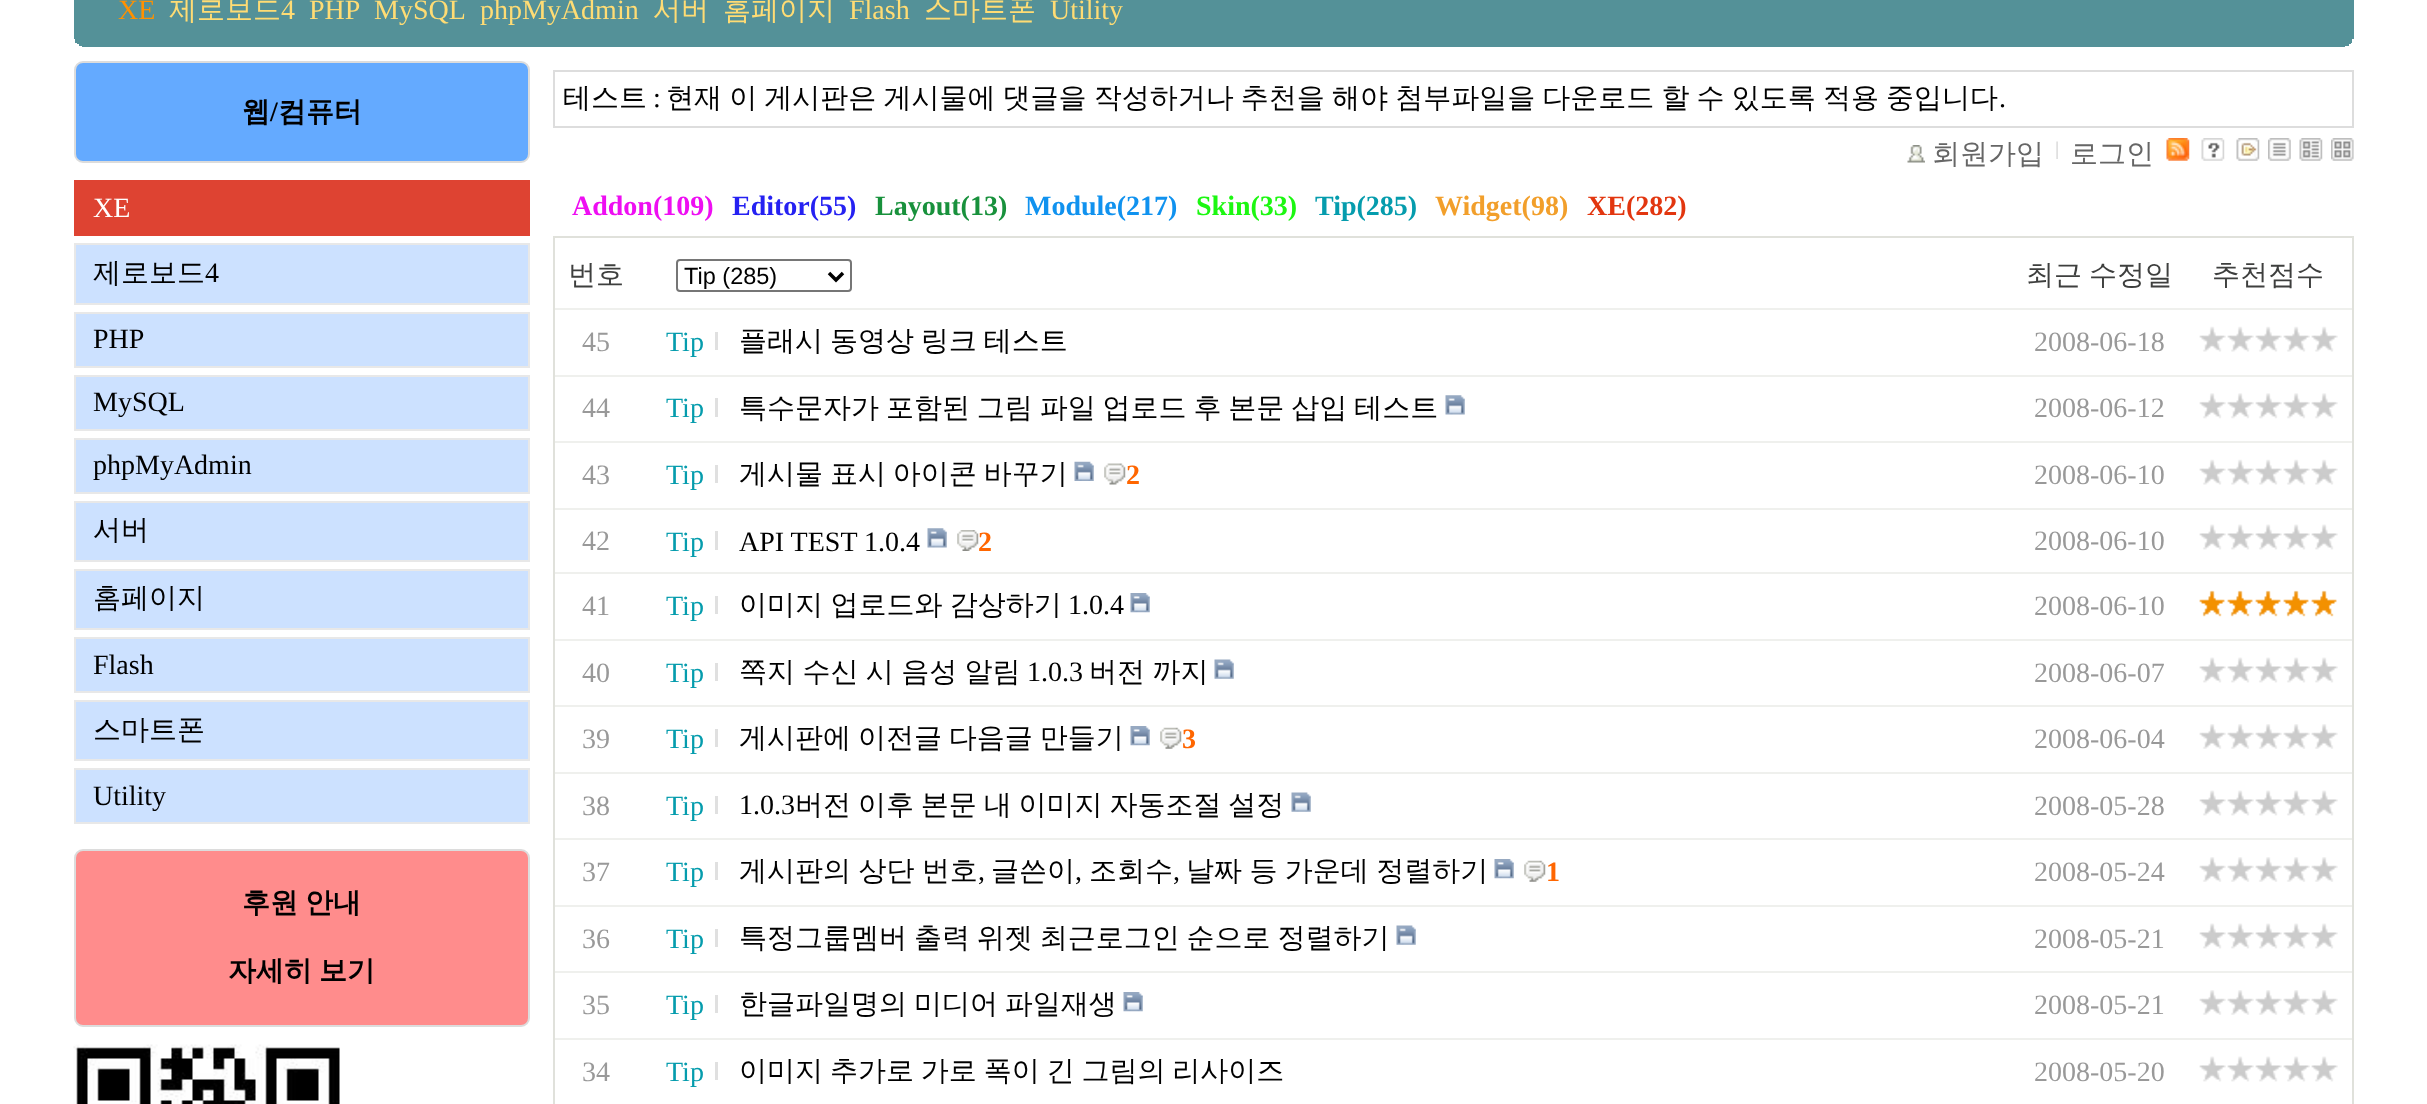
(async () => {
  const canvas = document.querySelector("canvas");
  canvas.width = 2427;
  canvas.height = 1104;
  const ctx = canvas.getContext("2d");
  ctx.miterLimit = 4;
  ctx.fontKerning = "normal";
  async function loadImage(src) {
    const img = new Image();
    img.src = src;
    await img.decode();
    return img;
  }
  let path;

  ctx.fillStyle = "#ffffff";
  ctx.fillRect(0, 0, 2427, 1104);
  for (const [x, y, w, h, color] of [
    [74, 0, 2280, 39, "#549198"],
    [77, 39, 2273, 3, "#549198"],
    [2350, 39, 2, 4, "#549198"],
    [75, 39, 2, 4, "#549198"],
    [77, 42, 2274, 2, "#549198"],
    [79, 44, 2270, 2, "#549198"],
    [82, 46, 2263, 1, "#549198"],
  ]) {
    ctx.fillStyle = color;
    ctx.fillRect(x, y, w, h);
  }
  ctx.fillStyle = "#64aaff";
  ctx.beginPath();
  ctx.roundRect(75, 62, 454, 100, 8);
  ctx.fill();
  ctx.strokeStyle = "#dcdcdc";
  ctx.lineWidth = 2;
  ctx.stroke();
  ctx.fillStyle = "#de4332";
  ctx.fillRect(74, 180, 456, 56);
  ctx.fillStyle = "#cce1ff";
  ctx.beginPath();
  ctx.rect(75, 244, 454, 60);
  ctx.fill();
  ctx.strokeStyle = "#e8e8e8";
  ctx.stroke();
  ctx.beginPath();
  ctx.rect(75, 313, 454, 54);
  ctx.fill();
  ctx.stroke();
  ctx.beginPath();
  ctx.rect(75, 376, 454, 54);
  ctx.fill();
  ctx.stroke();
  ctx.beginPath();
  ctx.rect(75, 439, 454, 54);
  ctx.fill();
  ctx.stroke();
  ctx.beginPath();
  ctx.rect(75, 502, 454, 59);
  ctx.fill();
  ctx.stroke();
  ctx.beginPath();
  ctx.rect(75, 570, 454, 59);
  ctx.fill();
  ctx.stroke();
  ctx.beginPath();
  ctx.rect(75, 638, 454, 54);
  ctx.fill();
  ctx.stroke();
  ctx.beginPath();
  ctx.rect(75, 701, 454, 59);
  ctx.fill();
  ctx.stroke();
  ctx.beginPath();
  ctx.rect(75, 769, 454, 54);
  ctx.fill();
  ctx.stroke();
  ctx.fillStyle = "#ff8c8c";
  ctx.beginPath();
  ctx.roundRect(75, 850, 454, 176, 8);
  ctx.fill();
  ctx.strokeStyle = "#dcdcdc";
  ctx.stroke();
  ctx.drawImage(await loadImage("img/1.png"), 73, 1044, 267, 60);
  ctx.strokeStyle = "#dddddd";
  ctx.strokeRect(554, 71, 1799, 56);
  ctx.drawImage(await loadImage("img/2.png"), 1907, 145, 18, 18);
  ctx.drawImage(await loadImage("img/3.png"), 2056, 141, 2, 18);
  ctx.drawImage(await loadImage("img/4.png"), 2166, 138, 24, 23);
  ctx.drawImage(await loadImage("img/5.png"), 2201, 138, 24, 23);
  ctx.drawImage(await loadImage("img/6.png"), 2236, 138, 24, 23);
  ctx.drawImage(await loadImage("img/7.png"), 2268, 138, 23, 23);
  ctx.drawImage(await loadImage("img/8.png"), 2299, 138, 24, 23);
  ctx.drawImage(await loadImage("img/9.png"), 2331, 138, 23, 23);
  for (const [x, y, w, h, color] of [
    [2352, 236, 2, 868, "#e0e1db"],
    [553, 236, 2, 868, "#e0e1db"],
    [555, 236, 1797, 2, "#e0e1db"],
  ]) {
    ctx.fillStyle = color;
    ctx.fillRect(x, y, w, h);
  }
  ctx.beginPath();
  ctx.roundRect(677, 260, 174, 31, 3);
  ctx.strokeStyle = "#767676";
  ctx.stroke();
  path = new Path2D("M829 273L836 280L843 273");
  ctx.strokeStyle = "#000000";
  ctx.lineWidth = 3.5;
  ctx.stroke(path);
  ctx.fillStyle = "#eff0ed";
  ctx.fillRect(555, 308, 1797, 2);
  ctx.fillStyle = "#e0e0e0";
  ctx.fillRect(715, 332, 3, 18);
  ctx.drawImage(await loadImage("img/10.png"), 2199, 326, 27, 26);
  ctx.drawImage(await loadImage("img/10.png"), 2227, 326, 27, 26);
  ctx.drawImage(await loadImage("img/10.png"), 2255, 326, 27, 26);
  ctx.drawImage(await loadImage("img/11.png"), 2283, 326, 27, 26);
  ctx.drawImage(await loadImage("img/12.png"), 2311, 326, 27, 26);
  ctx.fillStyle = "#eff0ed";
  ctx.fillRect(555, 375, 1797, 2);
  ctx.fillStyle = "#e0e0e0";
  ctx.fillRect(715, 398, 3, 19);
  ctx.drawImage(await loadImage("img/13.png"), 1445, 395, 20, 20);
  ctx.drawImage(await loadImage("img/14.png"), 2199, 393, 27, 26);
  ctx.drawImage(await loadImage("img/14.png"), 2227, 393, 27, 26);
  ctx.drawImage(await loadImage("img/14.png"), 2255, 393, 27, 26);
  ctx.drawImage(await loadImage("img/15.png"), 2283, 393, 27, 26);
  ctx.drawImage(await loadImage("img/16.png"), 2311, 393, 27, 26);
  ctx.fillStyle = "#eff0ed";
  ctx.fillRect(555, 441, 1797, 2);
  ctx.fillStyle = "#e0e0e0";
  ctx.fillRect(715, 465, 3, 18);
  ctx.drawImage(await loadImage("img/17.png"), 1074, 461, 20, 20);
  ctx.drawImage(await loadImage("img/18.png"), 1104, 463, 22, 22);
  ctx.drawImage(await loadImage("img/10.png"), 2199, 459, 27, 26);
  ctx.drawImage(await loadImage("img/10.png"), 2227, 459, 27, 26);
  ctx.drawImage(await loadImage("img/10.png"), 2255, 459, 27, 26);
  ctx.drawImage(await loadImage("img/11.png"), 2283, 459, 27, 26);
  ctx.drawImage(await loadImage("img/12.png"), 2311, 459, 27, 26);
  ctx.fillStyle = "#eff0ed";
  ctx.fillRect(555, 508, 1797, 2);
  ctx.fillStyle = "#e0e0e0";
  ctx.fillRect(715, 531, 3, 19);
  ctx.drawImage(await loadImage("img/13.png"), 927, 528, 20, 20);
  ctx.drawImage(await loadImage("img/19.png"), 957, 530, 22, 21);
  ctx.drawImage(await loadImage("img/20.png"), 2199, 524, 27, 26);
  ctx.drawImage(await loadImage("img/20.png"), 2227, 524, 27, 26);
  ctx.drawImage(await loadImage("img/20.png"), 2255, 524, 27, 26);
  ctx.drawImage(await loadImage("img/21.png"), 2283, 524, 27, 26);
  ctx.drawImage(await loadImage("img/22.png"), 2311, 524, 27, 26);
  ctx.fillStyle = "#eff0ed";
  ctx.fillRect(555, 572, 1797, 2);
  ctx.fillStyle = "#e0e0e0";
  ctx.fillRect(715, 596, 3, 18);
  ctx.drawImage(await loadImage("img/23.png"), 1130, 593, 20, 20);
  ctx.drawImage(await loadImage("img/24.png"), 2199, 590, 26, 27);
  ctx.drawImage(await loadImage("img/24.png"), 2227, 590, 26, 27);
  ctx.drawImage(await loadImage("img/24.png"), 2255, 590, 26, 27);
  ctx.drawImage(await loadImage("img/25.png"), 2283, 590, 26, 27);
  ctx.drawImage(await loadImage("img/26.png"), 2311, 590, 26, 27);
  ctx.fillStyle = "#eff0ed";
  ctx.fillRect(555, 639, 1797, 2);
  ctx.fillStyle = "#e0e0e0";
  ctx.fillRect(715, 663, 3, 18);
  ctx.drawImage(await loadImage("img/27.png"), 1214, 659, 20, 20);
  ctx.drawImage(await loadImage("img/20.png"), 2199, 657, 27, 26);
  ctx.drawImage(await loadImage("img/20.png"), 2227, 657, 27, 26);
  ctx.drawImage(await loadImage("img/20.png"), 2255, 657, 27, 26);
  ctx.drawImage(await loadImage("img/21.png"), 2283, 657, 27, 26);
  ctx.drawImage(await loadImage("img/22.png"), 2311, 657, 27, 26);
  ctx.fillStyle = "#eff0ed";
  ctx.fillRect(555, 705, 1797, 2);
  ctx.fillStyle = "#e0e0e0";
  ctx.fillRect(715, 729, 3, 18);
  ctx.drawImage(await loadImage("img/23.png"), 1130, 726, 20, 20);
  ctx.drawImage(await loadImage("img/28.png"), 1160, 727, 22, 22);
  ctx.drawImage(await loadImage("img/29.png"), 2199, 724, 27, 25);
  ctx.drawImage(await loadImage("img/29.png"), 2227, 724, 27, 25);
  ctx.drawImage(await loadImage("img/29.png"), 2255, 724, 27, 25);
  ctx.drawImage(await loadImage("img/30.png"), 2283, 724, 27, 25);
  ctx.drawImage(await loadImage("img/31.png"), 2311, 724, 27, 25);
  ctx.fillStyle = "#eff0ed";
  ctx.fillRect(555, 772, 1797, 2);
  ctx.fillStyle = "#e0e0e0";
  ctx.fillRect(715, 796, 3, 18);
  ctx.drawImage(await loadImage("img/32.png"), 1291, 792, 20, 20);
  ctx.drawImage(await loadImage("img/20.png"), 2199, 790, 27, 26);
  ctx.drawImage(await loadImage("img/20.png"), 2227, 790, 27, 26);
  ctx.drawImage(await loadImage("img/20.png"), 2255, 790, 27, 26);
  ctx.drawImage(await loadImage("img/21.png"), 2283, 790, 27, 26);
  ctx.drawImage(await loadImage("img/22.png"), 2311, 790, 27, 26);
  ctx.fillStyle = "#eff0ed";
  ctx.fillRect(555, 838, 1797, 2);
  ctx.fillStyle = "#e0e0e0";
  ctx.fillRect(715, 862, 3, 18);
  ctx.drawImage(await loadImage("img/23.png"), 1494, 859, 20, 20);
  ctx.drawImage(await loadImage("img/28.png"), 1524, 860, 22, 22);
  ctx.drawImage(await loadImage("img/29.png"), 2199, 857, 27, 25);
  ctx.drawImage(await loadImage("img/29.png"), 2227, 857, 27, 25);
  ctx.drawImage(await loadImage("img/29.png"), 2255, 857, 27, 25);
  ctx.drawImage(await loadImage("img/30.png"), 2283, 857, 27, 25);
  ctx.drawImage(await loadImage("img/31.png"), 2311, 857, 27, 25);
  ctx.fillStyle = "#eff0ed";
  ctx.fillRect(555, 905, 1797, 2);
  ctx.fillStyle = "#e0e0e0";
  ctx.fillRect(715, 929, 3, 18);
  ctx.drawImage(await loadImage("img/33.png"), 1396, 925, 20, 20);
  ctx.drawImage(await loadImage("img/20.png"), 2199, 923, 27, 26);
  ctx.drawImage(await loadImage("img/20.png"), 2227, 923, 27, 26);
  ctx.drawImage(await loadImage("img/20.png"), 2255, 923, 27, 26);
  ctx.drawImage(await loadImage("img/21.png"), 2283, 923, 27, 26);
  ctx.drawImage(await loadImage("img/22.png"), 2311, 923, 27, 26);
  ctx.fillStyle = "#eff0ed";
  ctx.fillRect(555, 971, 1797, 2);
  ctx.fillStyle = "#e0e0e0";
  ctx.fillRect(715, 995, 3, 18);
  ctx.drawImage(await loadImage("img/34.png"), 1123, 992, 20, 20);
  ctx.drawImage(await loadImage("img/29.png"), 2199, 990, 27, 25);
  ctx.drawImage(await loadImage("img/29.png"), 2227, 990, 27, 25);
  ctx.drawImage(await loadImage("img/29.png"), 2255, 990, 27, 25);
  ctx.drawImage(await loadImage("img/30.png"), 2283, 990, 27, 25);
  ctx.drawImage(await loadImage("img/31.png"), 2311, 990, 27, 25);
  ctx.fillStyle = "#eff0ed";
  ctx.fillRect(555, 1038, 1797, 2);
  ctx.fillStyle = "#e0e0e0";
  ctx.fillRect(715, 1062, 3, 18);
  ctx.drawImage(await loadImage("img/20.png"), 2199, 1056, 27, 26);
  ctx.drawImage(await loadImage("img/20.png"), 2227, 1056, 27, 26);
  ctx.drawImage(await loadImage("img/20.png"), 2255, 1056, 27, 26);
  ctx.drawImage(await loadImage("img/21.png"), 2283, 1056, 27, 26);
  ctx.drawImage(await loadImage("img/22.png"), 2311, 1056, 27, 26);
  ctx.font = "28px Liberation Serif";
  ctx.fillStyle = "#ff9100";
  ctx.fillText("XE", 118, 19);
  ctx.font = "500 28px WenQuanYi Zen Hei";
  ctx.fillStyle = "#ffdc74";
  ctx.fillText("제로보드", 169, 19);
  ctx.font = "28px Liberation Serif";
  for (const [text, x, y] of [
    ["4", 281, 19],
    ["PHP", 309, 19],
    ["MySQL", 374, 19],
    ["phpMyAdmin", 480, 19],
  ]) {
    ctx.fillText(text, x, y);
  }
  ctx.font = "500 28px WenQuanYi Zen Hei";
  ctx.fillText("서버", 653, 19);
  ctx.fillText("홈페이지", 723, 19);
  ctx.font = "28px Liberation Serif";
  ctx.fillText("Flash", 849, 19);
  ctx.font = "500 28px WenQuanYi Zen Hei";
  ctx.fillText("스마트폰", 924, 19);
  ctx.font = "28px Liberation Serif";
  ctx.fillText("Utility", 1050, 19);
  ctx.font = "bold 28px WenQuanYi Zen Hei";
  ctx.fillStyle = "#000000";
  ctx.fillText("웹", 242, 121);
  ctx.font = "bold 28px Liberation Serif";
  ctx.fillText("/", 270, 121);
  ctx.font = "bold 28px WenQuanYi Zen Hei";
  ctx.fillText("컴퓨터", 278, 121);
  ctx.font = "28px Liberation Serif";
  ctx.fillStyle = "#ffffff";
  ctx.fillText("XE", 93, 217);
  ctx.font = "500 28px WenQuanYi Zen Hei";
  ctx.fillStyle = "#000000";
  ctx.fillText("제로보드", 93, 282);
  ctx.font = "28px Liberation Serif";
  for (const [text, x, y] of [
    ["4", 205, 282],
    ["PHP", 93, 348],
    ["MySQL", 93, 411],
    ["phpMyAdmin", 93, 474],
  ]) {
    ctx.fillText(text, x, y);
  }
  ctx.font = "500 28px WenQuanYi Zen Hei";
  ctx.fillText("서버", 93, 539);
  ctx.fillText("홈페이지", 93, 607);
  ctx.font = "28px Liberation Serif";
  ctx.fillText("Flash", 93, 674);
  ctx.font = "500 28px WenQuanYi Zen Hei";
  ctx.fillText("스마트폰", 93, 739);
  ctx.font = "28px Liberation Serif";
  ctx.fillText("Utility", 93, 805);
  ctx.wordSpacing = "-1.5px";
  ctx.font = "bold 28px WenQuanYi Zen Hei";
  ctx.fillText("후원 안내", 242, 912);
  ctx.fillText("자세히 보기", 228, 980);
  ctx.wordSpacing = "0px";
  ctx.font = "500 28px WenQuanYi Zen Hei";
  ctx.fillText("테스트", 563, 107);
  ctx.font = "28px Liberation Serif";
  ctx.fillText(":", 653, 107);
  ctx.wordSpacing = "-1.25px";
  ctx.font = "500 28px WenQuanYi Zen Hei";
  ctx.fillText("현재 이 게시판은 게시물에 댓글을 작성하거나 추천을 해야 첨부파일을 다운로드 할 수 있도록 적용 중입니다", 666, 107);
  ctx.wordSpacing = "0px";
  ctx.font = "28px Liberation Serif";
  ctx.fillText(".", 1999, 107);
  ctx.font = "500 28px WenQuanYi Zen Hei";
  ctx.fillStyle = "#666666";
  ctx.fillText("회원가입", 1932, 163);
  ctx.fillText("로그인", 2070, 163);
  ctx.font = "bold 28px Liberation Serif";
  ctx.fillStyle = "#ee0ef2";
  ctx.fillText("Addon(109)", 572, 215);
  ctx.fillStyle = "#2521f2";
  ctx.fillText("Editor(55)", 732, 215);
  ctx.fillStyle = "#18913c";
  ctx.fillText("Layout(13)", 875, 215);
  ctx.fillStyle = "#1092ef";
  ctx.fillText("Module(217)", 1025, 215);
  ctx.fillStyle = "#1cf711";
  ctx.fillText("Skin(33)", 1196, 215);
  ctx.fillStyle = "#059cad";
  ctx.fillText("Tip(285)", 1315, 215);
  ctx.fillStyle = "#f29f2b";
  ctx.fillText("Widget(98)", 1435, 215);
  ctx.fillStyle = "#e2360f";
  ctx.fillText("XE(282)", 1587, 215);
  ctx.font = "500 28px WenQuanYi Zen Hei";
  ctx.fillStyle = "#3e3f3e";
  ctx.fillText("번호", 568, 284);
  ctx.font = "23.5px Liberation Sans";
  ctx.fillStyle = "#000000";
  ctx.fillText("Tip (285)", 684, 284);
  ctx.wordSpacing = "-1.5px";
  ctx.font = "500 28px WenQuanYi Zen Hei";
  ctx.fillStyle = "#3e3f3e";
  ctx.fillText("최근 수정일", 2026, 284);
  ctx.wordSpacing = "0px";
  ctx.fillText("추천점수", 2212, 284);
  ctx.font = "28px Liberation Serif";
  ctx.fillStyle = "#999999";
  ctx.fillText("45", 582, 351);
  ctx.fillStyle = "#059cad";
  ctx.fillText("Tip", 666, 351);
  ctx.wordSpacing = "-1.5px";
  ctx.font = "500 28px WenQuanYi Zen Hei";
  ctx.fillStyle = "#000000";
  ctx.fillText("플래시 동영상 링크 테스트", 739, 350);
  ctx.wordSpacing = "0px";
  ctx.font = "28px Liberation Serif";
  ctx.fillStyle = "#999999";
  ctx.fillText("2008-06-18", 2034, 351);
  ctx.fillText("44", 582, 417);
  ctx.fillStyle = "#059cad";
  ctx.fillText("Tip", 666, 417);
  ctx.wordSpacing = "-1.5px";
  ctx.font = "500 28px WenQuanYi Zen Hei";
  ctx.fillStyle = "#000000";
  ctx.fillText("특수문자가 포함된 그림 파일 업로드 후 본문 삽입 테스트", 739, 417);
  ctx.wordSpacing = "0px";
  ctx.font = "28px Liberation Serif";
  ctx.fillStyle = "#999999";
  ctx.fillText("2008-06-12", 2034, 417);
  ctx.fillText("43", 582, 484);
  ctx.fillStyle = "#059cad";
  ctx.fillText("Tip", 666, 484);
  ctx.wordSpacing = "-1.5px";
  ctx.font = "500 28px WenQuanYi Zen Hei";
  ctx.fillStyle = "#000000";
  ctx.fillText("게시물 표시 아이콘 바꾸기", 739, 483);
  ctx.wordSpacing = "0px";
  ctx.font = "bold 28px Liberation Serif";
  ctx.fillStyle = "#ff6600";
  ctx.fillText("2", 1126, 484);
  ctx.font = "28px Liberation Serif";
  ctx.fillStyle = "#999999";
  ctx.fillText("2008-06-10", 2034, 484);
  ctx.fillText("42", 582, 550);
  ctx.fillStyle = "#059cad";
  ctx.fillText("Tip", 666, 551);
  ctx.fillStyle = "#000000";
  ctx.fillText("API TEST 1.0.4", 739, 551);
  ctx.font = "bold 28px Liberation Serif";
  ctx.fillStyle = "#ff6600";
  ctx.fillText("2", 978, 551);
  ctx.font = "28px Liberation Serif";
  ctx.fillStyle = "#999999";
  ctx.fillText("2008-06-10", 2034, 550);
  ctx.fillText("41", 582, 615);
  ctx.fillStyle = "#059cad";
  ctx.fillText("Tip", 666, 615);
  ctx.wordSpacing = "-1px";
  ctx.font = "500 28px WenQuanYi Zen Hei";
  ctx.fillStyle = "#000000";
  ctx.fillText("이미지 업로드와 감상하기", 739, 614);
  ctx.wordSpacing = "0px";
  ctx.font = "28px Liberation Serif";
  ctx.fillText("1.0.4", 1068, 614);
  ctx.fillStyle = "#999999";
  ctx.fillText("2008-06-10", 2034, 615);
  ctx.fillText("40", 582, 682);
  ctx.fillStyle = "#059cad";
  ctx.fillText("Tip", 666, 682);
  ctx.wordSpacing = "-1px";
  ctx.font = "500 28px WenQuanYi Zen Hei";
  ctx.fillStyle = "#000000";
  ctx.fillText("쪽지 수신 시 음성 알림", 739, 681);
  ctx.wordSpacing = "0px";
  ctx.font = "28px Liberation Serif";
  ctx.fillText("1.0.3", 1027, 681);
  ctx.wordSpacing = "-1px";
  ctx.font = "500 28px WenQuanYi Zen Hei";
  ctx.fillText("버전 까지", 1089, 681);
  ctx.wordSpacing = "0px";
  ctx.font = "28px Liberation Serif";
  ctx.fillStyle = "#999999";
  ctx.fillText("2008-06-07", 2034, 682);
  ctx.fillText("39", 582, 748);
  ctx.fillStyle = "#059cad";
  ctx.fillText("Tip", 666, 748);
  ctx.wordSpacing = "-1.5px";
  ctx.font = "500 28px WenQuanYi Zen Hei";
  ctx.fillStyle = "#000000";
  ctx.fillText("게시판에 이전글 다음글 만들기", 739, 747);
  ctx.wordSpacing = "0px";
  ctx.font = "bold 28px Liberation Serif";
  ctx.fillStyle = "#ff6600";
  ctx.fillText("3", 1182, 748);
  ctx.font = "28px Liberation Serif";
  ctx.fillStyle = "#999999";
  ctx.fillText("2008-06-04", 2034, 748);
  ctx.fillText("38", 582, 815);
  ctx.fillStyle = "#059cad";
  ctx.fillText("Tip", 666, 815);
  ctx.fillStyle = "#000000";
  ctx.fillText("1.0.3", 739, 814);
  ctx.wordSpacing = "-1.5px";
  ctx.font = "500 28px WenQuanYi Zen Hei";
  ctx.fillText("버전 이후 본문 내 이미지 자동조절 설정", 795, 814);
  ctx.wordSpacing = "0px";
  ctx.font = "28px Liberation Serif";
  ctx.fillStyle = "#999999";
  ctx.fillText("2008-05-28", 2034, 815);
  ctx.fillText("37", 582, 881);
  ctx.fillStyle = "#059cad";
  ctx.fillText("Tip", 666, 881);
  ctx.wordSpacing = "-1px";
  ctx.font = "500 28px WenQuanYi Zen Hei";
  ctx.fillStyle = "#000000";
  ctx.fillText("게시판의 상단 번호", 739, 880);
  ctx.wordSpacing = "0px";
  ctx.font = "28px Liberation Serif";
  ctx.fillText(",", 978, 880);
  ctx.font = "500 28px WenQuanYi Zen Hei";
  ctx.fillText("글쓴이", 991, 880);
  ctx.font = "28px Liberation Serif";
  ctx.fillText(",", 1075, 880);
  ctx.font = "500 28px WenQuanYi Zen Hei";
  ctx.fillText("조회수", 1089, 880);
  ctx.font = "28px Liberation Serif";
  ctx.fillText(",", 1173, 880);
  ctx.wordSpacing = "-1px";
  ctx.font = "500 28px WenQuanYi Zen Hei";
  ctx.fillText("날짜 등 가운데 정렬하기", 1186, 880);
  ctx.wordSpacing = "0px";
  ctx.font = "bold 28px Liberation Serif";
  ctx.fillStyle = "#ff6600";
  ctx.fillText("1", 1546, 881);
  ctx.font = "28px Liberation Serif";
  ctx.fillStyle = "#999999";
  ctx.fillText("2008-05-24", 2034, 881);
  ctx.fillText("36", 582, 948);
  ctx.fillStyle = "#059cad";
  ctx.fillText("Tip", 666, 948);
  ctx.wordSpacing = "-1.5px";
  ctx.font = "500 28px WenQuanYi Zen Hei";
  ctx.fillStyle = "#000000";
  ctx.fillText("특정그룹멤버 출력 위젯 최근로그인 순으로 정렬하기", 739, 947);
  ctx.wordSpacing = "0px";
  ctx.font = "28px Liberation Serif";
  ctx.fillStyle = "#999999";
  ctx.fillText("2008-05-21", 2034, 948);
  ctx.fillText("35", 582, 1014);
  ctx.fillStyle = "#059cad";
  ctx.fillText("Tip", 666, 1014);
  ctx.wordSpacing = "-1.5px";
  ctx.font = "500 28px WenQuanYi Zen Hei";
  ctx.fillStyle = "#000000";
  ctx.fillText("한글파일명의 미디어 파일재생", 739, 1013);
  ctx.wordSpacing = "0px";
  ctx.font = "28px Liberation Serif";
  ctx.fillStyle = "#999999";
  ctx.fillText("2008-05-21", 2034, 1014);
  ctx.fillText("34", 582, 1081);
  ctx.fillStyle = "#059cad";
  ctx.fillText("Tip", 666, 1081);
  ctx.wordSpacing = "-1.5px";
  ctx.font = "500 28px WenQuanYi Zen Hei";
  ctx.fillStyle = "#000000";
  ctx.fillText("이미지 추가로 가로 폭이 긴 그림의 리사이즈", 739, 1080);
  ctx.wordSpacing = "0px";
  ctx.font = "28px Liberation Serif";
  ctx.fillStyle = "#999999";
  ctx.fillText("2008-05-20", 2034, 1081);
})();
